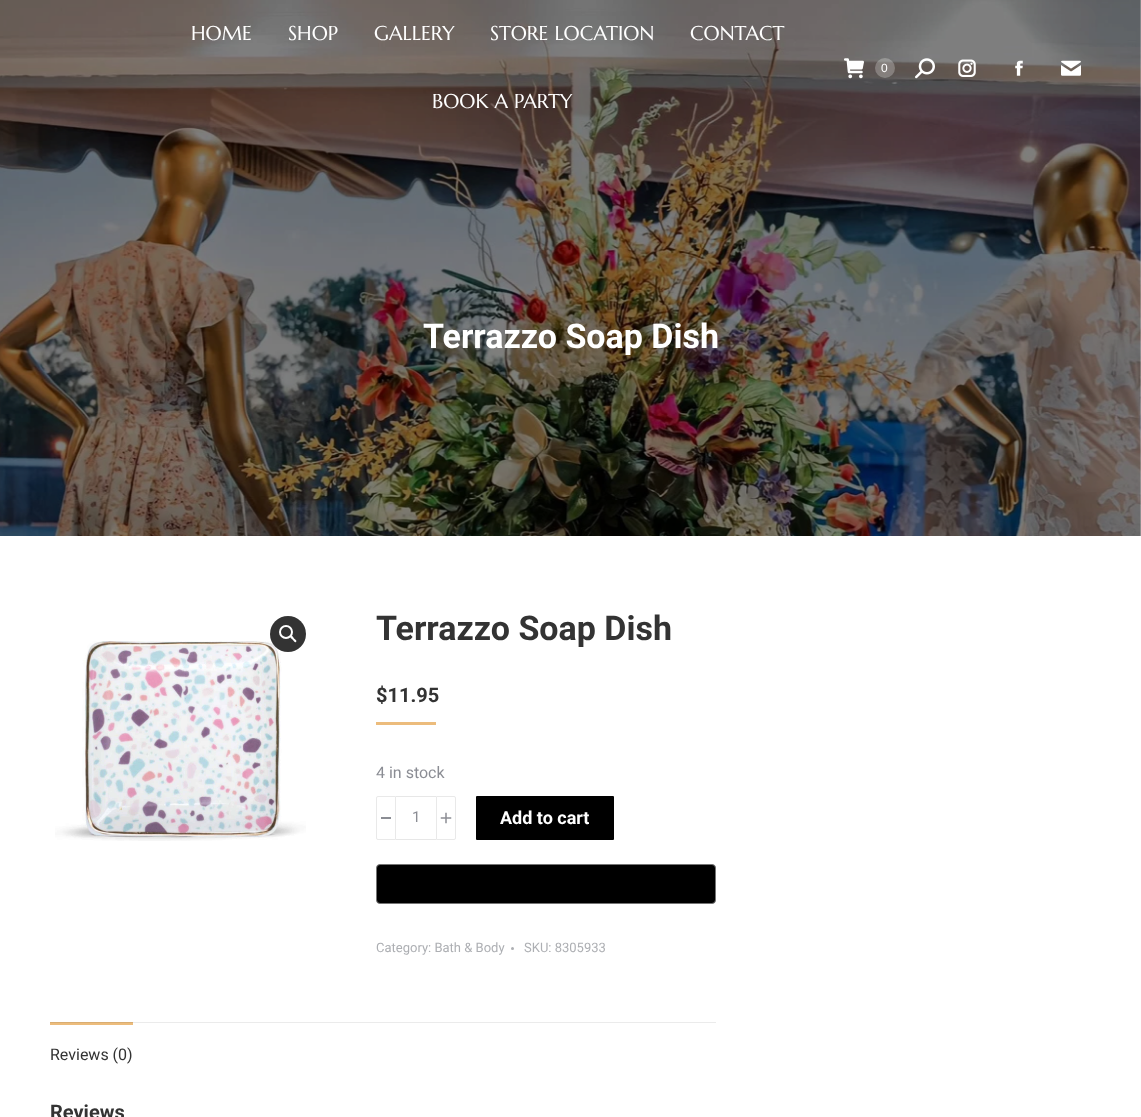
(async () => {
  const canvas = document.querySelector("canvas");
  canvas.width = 1141;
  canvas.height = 1117;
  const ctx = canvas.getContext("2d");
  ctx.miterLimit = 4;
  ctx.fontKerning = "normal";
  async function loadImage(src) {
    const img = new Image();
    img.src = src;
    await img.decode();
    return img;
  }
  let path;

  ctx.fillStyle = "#ffffff";
  ctx.fillRect(0, 0, 1141, 1117);
  ctx.fillStyle = "#ebebeb";
  ctx.fillRect(133, 1022, 583, 1);
  ctx.drawImage(await loadImage("img/6.png"), 0, 0, 1141, 536);
  ctx.drawImage(await loadImage("img/1.png"), 844, 58, 20, 21);
  ctx.fillStyle = "rgba(255, 255, 255, 0.25)";
  ctx.beginPath();
  ctx.arc(885, 68, 10, 0, Math.PI * 2);
  ctx.fill();
  ctx.drawImage(await loadImage("img/2.png"), 915, 58, 20, 21);
  ctx.drawImage(await loadImage("img/3.png"), 958, 59, 18, 18);
  ctx.drawImage(await loadImage("img/4.png"), 1015, 60, 8, 16);
  ctx.drawImage(await loadImage("img/5.png"), 1061, 60, 20, 16);
  ctx.drawImage(await loadImage("img/7.png"), 55, 641, 251, 200);
  ctx.fillStyle = "rgba(0, 0, 0, 0.8)";
  ctx.beginPath();
  ctx.arc(288, 634, 18, 0, Math.PI * 2);
  ctx.fill();
  ctx.beginPath();
  ctx.arc(286, 632, 6, 0, Math.PI * 2);
  ctx.strokeStyle = "#ffffff";
  ctx.lineWidth = 2;
  ctx.stroke();
  ctx.fillStyle = "#ffffff";
  path = new Path2D("M290.5 636C292 635 293.5 637.5 294 638.5C294.5 639 297.5 640.5 296 642C295 643 293.5 640.5 292.5 639.5C292 639 289.5 637.5 290.5 636Z");
  ctx.fill(path);
  ctx.fillStyle = "#ecbc7c";
  ctx.fillRect(376, 722, 60, 3);
  ctx.beginPath();
  ctx.roundRect(376.5, 796.5, 19, 43, [1.5, 0, 0, 1.5]);
  ctx.strokeStyle = "#e9e9e9";
  ctx.lineWidth = 1;
  ctx.stroke();
  for (const [x, y, w, h, color] of [
    [381, 817, 10, 2, "#8b8d94"],
    [396, 796, 40, 1, "#e7e7e7"],
    [396, 839, 40, 1, "#e7e7e7"],
  ]) {
    ctx.fillStyle = color;
    ctx.fillRect(x, y, w, h);
  }
  ctx.beginPath();
  ctx.roundRect(436.5, 796.5, 19, 43, [0, 1.5, 1.5, 0]);
  ctx.stroke();
  ctx.drawImage(await loadImage("img/8.png"), 440, 812, 12, 12);
  ctx.fillStyle = "#000000";
  ctx.beginPath();
  ctx.roundRect(476, 796, 138, 44, 1);
  ctx.fill();
  ctx.beginPath();
  ctx.roundRect(376.5, 864.5, 339, 39, 3.5);
  ctx.fill();
  ctx.strokeStyle = "#757575";
  ctx.stroke();
  ctx.fillStyle = "#adafb3";
  ctx.beginPath();
  ctx.arc(512.5, 948.5, 1.5, 0, Math.PI * 2);
  ctx.fill();
  ctx.fillStyle = "#ecbc7c";
  ctx.fillRect(50, 1023, 83, 2);
  ctx.fillStyle = "#d9ad72";
  ctx.fillRect(50, 1022, 83, 1);
  ctx.font = "20px Marcellus";
  ctx.fillStyle = "#ffffff";
  for (const [text, x, y] of [
    ["HOME", 191, 40],
    ["SHOP", 288, 40],
    ["GALLERY", 374, 40],
    ["STORE LOCATION", 490, 40],
    ["CONTACT", 690, 40],
    ["BOOK A PARTY", 432, 108],
  ]) {
    ctx.fillText(text, x, y);
  }
  ctx.font = "12px Liberation Sans";
  ctx.fillText("0", 881, 72);
  ctx.font = "bold 34px Roboto";
  ctx.fillText("Terrazzo Soap Dish", 423, 348);
  ctx.fillStyle = "#333333";
  ctx.fillText("Terrazzo Soap Dish", 376, 640);
  ctx.font = "bold 20px Roboto";
  ctx.fillText("$11.95", 376, 702);
  ctx.font = "16px Roboto";
  ctx.fillStyle = "#8b8d94";
  ctx.fillText("4 in stock", 376, 778);
  ctx.font = "15px Roboto";
  ctx.fillText("1", 412, 822);
  ctx.font = "bold 18px Roboto";
  ctx.fillStyle = "#ffffff";
  ctx.fillText("Add to cart", 500, 824);
  ctx.font = "13px Roboto";
  ctx.fillStyle = "#adafb3";
  ctx.fillText("Category: Bath & Body", 376, 952);
  ctx.fillText("SKU: 8305933", 524, 952);
  ctx.font = "16px Roboto";
  ctx.fillStyle = "#333333";
  ctx.fillText("Reviews (0)", 50, 1060);
  ctx.font = "bold 20px Roboto";
  ctx.fillText("Reviews", 50, 1119);
})();
